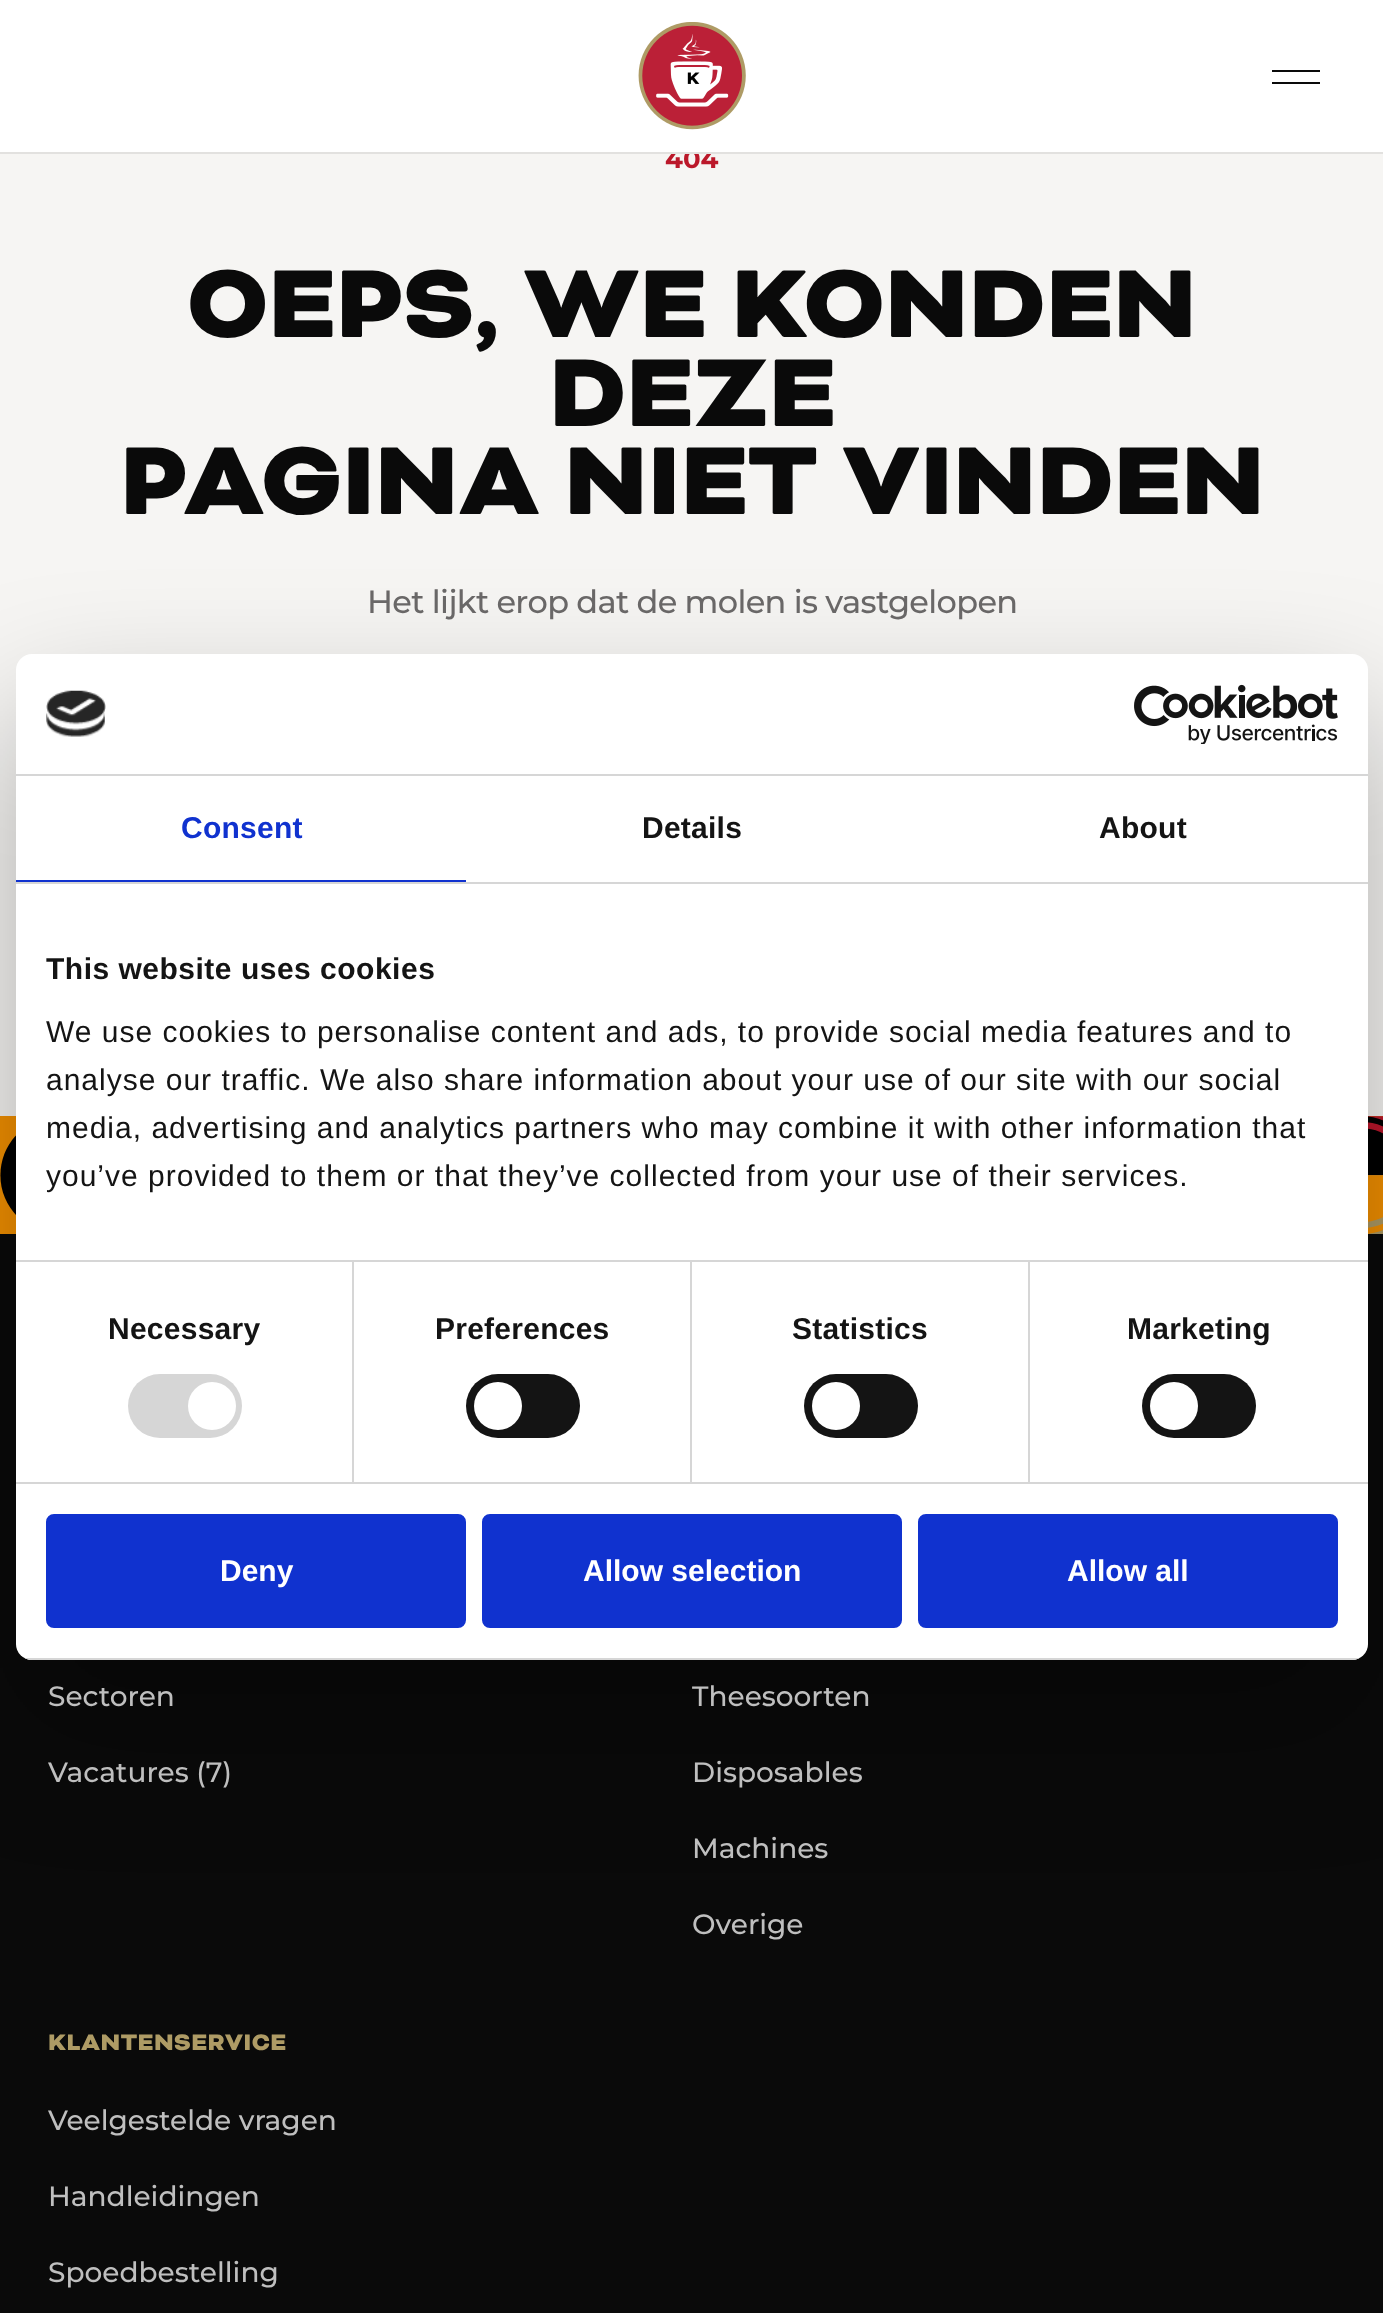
(async () => {
  const canvas = document.querySelector("canvas");
  canvas.width = 1383;
  canvas.height = 2313;
  const ctx = canvas.getContext("2d");
  ctx.miterLimit = 4;
  ctx.fontKerning = "normal";
  async function loadImage(src) {
    const img = new Image();
    img.src = src;
    await img.decode();
    return img;
  }

  ctx.fillStyle = "#f6f5f3";
  ctx.fillRect(0, 0, 1383, 2313);
  ctx.fillStyle = "#0a0a0a";
  ctx.fillRect(0, 1234, 1383, 1079);
  ctx.drawImage(await loadImage("img/2.png"), 0, 1116, 1383, 118);
  ctx.fillStyle = "rgba(0, 0, 0, 0.3)";
  ctx.filter = "blur(68px)";
  ctx.beginPath();
  ctx.roundRect(16, 718, 1352, 1006, 16);
  ctx.fill();
  ctx.filter = "none";
  ctx.fillStyle = "#ffffff";
  ctx.beginPath();
  ctx.roundRect(16, 654, 1352, 1006, 16);
  ctx.fill();
  ctx.fillStyle = "#d6d6d6";
  ctx.fillRect(16, 774, 1352, 2);
  ctx.drawImage(await loadImage("img/3.png"), 46, 690, 60, 47);
  ctx.drawImage(await loadImage("img/4.png"), 1134, 684, 204, 60);
  for (const [x, y, w, h, color] of [
    [16, 882, 1352, 2, "#d6d6d6"],
    [16, 880, 450, 2, "#1032cf"],
    [16, 1260, 1352, 2, "#d6d6d6"],
    [16, 1482, 1352, 2, "#d6d6d6"],
    [352, 1262, 2, 220, "#d6d6d6"],
  ]) {
    ctx.fillStyle = color;
    ctx.fillRect(x, y, w, h);
  }
  ctx.beginPath();
  ctx.roundRect(128, 1374, 114, 64, 32);
  ctx.fill();
  ctx.fillStyle = "#ffffff";
  ctx.beginPath();
  ctx.arc(212, 1406, 24, 0, Math.PI * 2);
  ctx.fill();
  ctx.fillStyle = "#d6d6d6";
  ctx.fillRect(690, 1262, 2, 220);
  ctx.fillStyle = "#141414";
  ctx.beginPath();
  ctx.roundRect(466, 1374, 114, 64, 32);
  ctx.fill();
  ctx.fillStyle = "#ffffff";
  ctx.beginPath();
  ctx.arc(498, 1406, 24, 0, Math.PI * 2);
  ctx.fill();
  ctx.fillStyle = "#d6d6d6";
  ctx.fillRect(1028, 1262, 2, 220);
  ctx.fillStyle = "#141414";
  ctx.beginPath();
  ctx.roundRect(804, 1374, 114, 64, 32);
  ctx.fill();
  ctx.fillStyle = "#ffffff";
  ctx.beginPath();
  ctx.arc(836, 1406, 24, 0, Math.PI * 2);
  ctx.fill();
  ctx.fillStyle = "#141414";
  ctx.beginPath();
  ctx.roundRect(1142, 1374, 114, 64, 32);
  ctx.fill();
  ctx.fillStyle = "#ffffff";
  ctx.beginPath();
  ctx.arc(1174, 1406, 24, 0, Math.PI * 2);
  ctx.fill();
  ctx.save();
  ctx.beginPath();
  ctx.roundRect(16, 654, 1352, 1006, 16);
  ctx.clip();
  ctx.fillStyle = "#d6d6d6";
  ctx.fillRect(16, 1658, 1352, 2);
  ctx.restore();
  ctx.fillStyle = "#1032cf";
  ctx.beginPath();
  ctx.roundRect(48, 1516, 416, 110, 6);
  ctx.fill();
  ctx.strokeStyle = "#1032cf";
  ctx.lineWidth = 4;
  ctx.stroke();
  ctx.beginPath();
  ctx.roundRect(484, 1516, 416, 110, 6);
  ctx.fill();
  ctx.stroke();
  ctx.beginPath();
  ctx.roundRect(920, 1516, 416, 110, 6);
  ctx.fill();
  ctx.stroke();
  ctx.font = "bold 26px Montserrat";
  ctx.fillStyle = "#bb182a";
  ctx.fillText("404", 665, 168);
  for (const [x, y, w, h, color] of [
    [0, 0, 1383, 152, "#ffffff"],
    [1272, 82, 48, 2, "#0a0a0a"],
    [1272, 70, 48, 2, "#0a0a0a"],
  ]) {
    ctx.fillStyle = color;
    ctx.fillRect(x, y, w, h);
  }
  ctx.drawImage(await loadImage("img/1.png"), 638, 22, 108, 108);
  ctx.fillStyle = "#e2e1df";
  ctx.fillRect(0, 152, 1383, 2);
  ctx.font = "900 110.75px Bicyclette";
  ctx.fillStyle = "#0a0a0a";
  for (const [text, x, y] of [
    ["OEPS, WE KONDEN", 187, 337],
    ["DEZE", 549, 426],
    ["PAGINA NIET VINDEN", 120, 514],
  ]) {
    ctx.fillText(text, x, y);
  }
  ctx.letterSpacing = "-0.65px";
  ctx.font = "500 32px Montserrat";
  ctx.fillStyle = "#696767";
  ctx.fillText("Het lijkt erop dat de molen is vastgelopen", 367, 613);
  ctx.letterSpacing = "0px";
  ctx.font = "500 28px Montserrat";
  ctx.fillStyle = "#bfbfbf";
  for (const [text, x, y] of [
    ["Sectoren", 48, 1706],
    ["Vacatures (7)", 48, 1782],
    ["Theesoorten", 692, 1706],
    ["Disposables", 692, 1782],
    ["Machines", 692, 1858],
    ["Overige", 692, 1934],
  ]) {
    ctx.fillText(text, x, y);
  }
  ctx.letterSpacing = "0.5px";
  ctx.font = "900 26px Bicyclette";
  ctx.fillStyle = "#ae9b65";
  ctx.fillText("KLANTENSERVICE", 48, 2050);
  ctx.letterSpacing = "0px";
  ctx.font = "500 28px Montserrat";
  ctx.fillStyle = "#bfbfbf";
  for (const [text, x, y] of [
    ["Veelgestelde vragen", 48, 2130],
    ["Handleidingen", 48, 2206],
    ["Spoedbestelling", 48, 2282],
  ]) {
    ctx.fillText(text, x, y);
  }
  ctx.letterSpacing = "0.25px";
  ctx.font = "bold 30px Liberation Sans";
  ctx.fillStyle = "#1032cf";
  ctx.fillText("Consent", 181, 838);
  ctx.fillStyle = "#141414";
  ctx.fillText("Details", 642, 838);
  ctx.fillText("About", 1099, 838);
  ctx.letterSpacing = "0.5px";
  ctx.fillText("This website uses cookies", 46, 979);
  ctx.letterSpacing = "1px";
  ctx.font = "30px Liberation Sans";
  for (const [text, x, y] of [
    ["We use cookies to personalise content and ads, to provide social media features and to", 46, 1042],
    ["analyse our traffic. We also share information about your use of our site with our social", 46, 1090],
    ["media, advertising and analytics partners who may combine it with other information that", 46, 1138],
    ["you’ve provided to them or that they’ve collected from your use of their services.", 46, 1186],
  ]) {
    ctx.fillText(text, x, y);
  }
  ctx.letterSpacing = "0.25px";
  ctx.font = "bold 30px Liberation Sans";
  for (const [text, x, y] of [
    ["Necessary", 108, 1339],
    ["Preferences", 435, 1339],
    ["Statistics", 792, 1339],
    ["Marketing", 1127, 1339],
  ]) {
    ctx.fillText(text, x, y);
  }
  ctx.letterSpacing = "0px";
  ctx.fillStyle = "#ffffff";
  for (const [text, x, y] of [
    ["Deny", 220, 1581],
    ["Allow selection", 583, 1581],
    ["Allow all", 1067, 1581],
  ]) {
    ctx.fillText(text, x, y);
  }
})();
